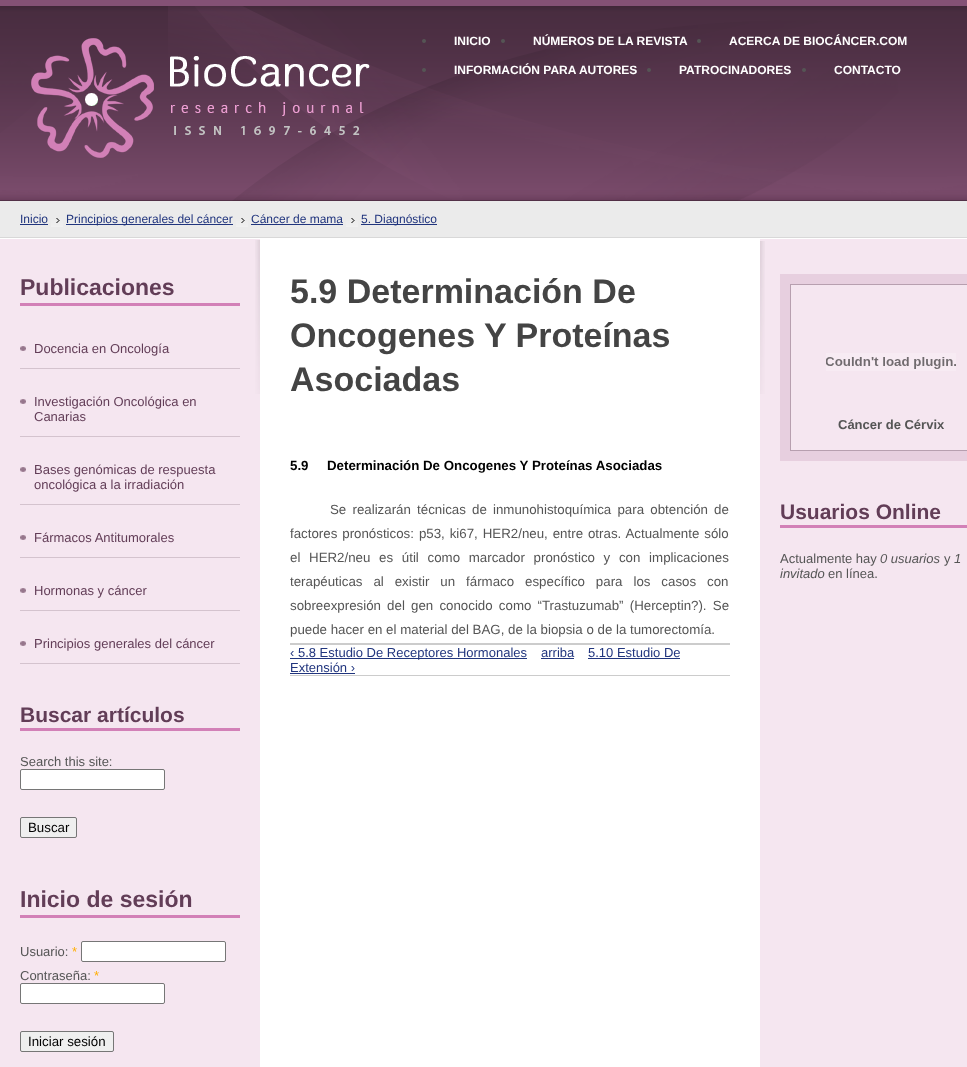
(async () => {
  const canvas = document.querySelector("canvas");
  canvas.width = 967;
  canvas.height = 1067;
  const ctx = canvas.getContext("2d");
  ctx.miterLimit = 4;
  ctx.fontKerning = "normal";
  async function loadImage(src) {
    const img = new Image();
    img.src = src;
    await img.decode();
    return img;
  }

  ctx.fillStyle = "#ffffff";
  ctx.fillRect(0, 0, 967, 1067);
  ctx.drawImage(await loadImage("img/1.png"), 0, 0, 967, 201);
  ctx.drawImage(await loadImage("img/2.png"), 31, 38, 339, 120);
  ctx.fillStyle = "#555555";
  ctx.beginPath();
  ctx.arc(424, 41, 2, 0, Math.PI * 2);
  ctx.fill();
  ctx.beginPath();
  ctx.arc(503, 41, 2, 0, Math.PI * 2);
  ctx.fill();
  ctx.beginPath();
  ctx.arc(699, 41, 2, 0, Math.PI * 2);
  ctx.fill();
  ctx.beginPath();
  ctx.arc(424, 70, 2, 0, Math.PI * 2);
  ctx.fill();
  ctx.beginPath();
  ctx.arc(649, 70, 2, 0, Math.PI * 2);
  ctx.fill();
  ctx.beginPath();
  ctx.arc(804, 70, 2, 0, Math.PI * 2);
  ctx.fill();
  for (const [x, y, w, h, color] of [
    [0, 239, 260, 828, "#f5e6f0"],
    [760, 239, 207, 828, "#f5e6f0"],
    [0, 201, 967, 36, "#ebebeb"],
    [0, 237, 967, 1, "#d8d8d8"],
    [20, 224, 28, 1, "#21357e"],
  ]) {
    ctx.fillStyle = color;
    ctx.fillRect(x, y, w, h);
  }
  ctx.drawImage(await loadImage("img/3.png"), 51, 218, 12, 9);
  ctx.fillRect(66, 224, 167, 1);
  ctx.drawImage(await loadImage("img/3.png"), 236, 218, 12, 9);
  ctx.fillRect(251, 224, 92, 1);
  ctx.drawImage(await loadImage("img/3.png"), 346, 218, 12, 9);
  ctx.fillRect(361, 224, 76, 1);
  ctx.drawImage(await loadImage("img/4.png"), 255, 240, 5, 154);
  ctx.fillStyle = "#d280b7";
  ctx.fillRect(20, 303, 220, 3);
  ctx.drawImage(await loadImage("img/5.png"), 20, 346, 6, 5);
  ctx.fillStyle = "#d4c3ce";
  ctx.fillRect(20, 368, 220, 1);
  ctx.drawImage(await loadImage("img/5.png"), 20, 399, 6, 5);
  ctx.fillRect(20, 436, 220, 1);
  ctx.drawImage(await loadImage("img/5.png"), 20, 467, 6, 5);
  ctx.fillRect(20, 504, 220, 1);
  ctx.drawImage(await loadImage("img/5.png"), 20, 535, 6, 5);
  ctx.fillRect(20, 557, 220, 1);
  ctx.drawImage(await loadImage("img/5.png"), 20, 588, 6, 5);
  ctx.fillRect(20, 610, 220, 1);
  ctx.drawImage(await loadImage("img/5.png"), 20, 641, 6, 5);
  ctx.fillRect(20, 663, 220, 1);
  ctx.fillStyle = "#d280b7";
  ctx.fillRect(20, 728, 220, 3);
  ctx.fillStyle = "#ffffff";
  ctx.beginPath();
  ctx.roundRect(20.5, 769.5, 144, 20, 1.5);
  ctx.fill();
  ctx.strokeStyle = "#767676";
  ctx.stroke();
  ctx.fillStyle = "#efefef";
  ctx.beginPath();
  ctx.roundRect(20.5, 817.5, 56, 20, 1.5);
  ctx.fill();
  ctx.stroke();
  ctx.fillStyle = "#d280b7";
  ctx.fillRect(20, 915, 220, 3);
  ctx.fillStyle = "#ffffff";
  ctx.beginPath();
  ctx.roundRect(81.5, 941.5, 144, 20, 1.5);
  ctx.fill();
  ctx.stroke();
  ctx.beginPath();
  ctx.roundRect(20.5, 983.5, 144, 20, 1.5);
  ctx.fill();
  ctx.stroke();
  ctx.fillStyle = "#efefef";
  ctx.beginPath();
  ctx.roundRect(20.5, 1031.5, 93, 20, 1.5);
  ctx.fill();
  ctx.stroke();
  for (const [x, y, w, h, color] of [
    [290, 643, 440, 2, "#cccccc"],
    [290, 675, 440, 1, "#cccccc"],
    [290, 658, 237, 1, "#21357e"],
    [541, 658, 33, 1, "#21357e"],
    [588, 658, 92, 1, "#21357e"],
    [290, 673, 65, 1, "#21357e"],
  ]) {
    ctx.fillStyle = color;
    ctx.fillRect(x, y, w, h);
  }
  ctx.drawImage(await loadImage("img/6.png"), 760, 241, 5, 153);
  ctx.strokeStyle = "#e7cfdf";
  ctx.lineWidth = 10;
  ctx.strokeRect(785, 279, 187, 177);
  ctx.strokeStyle = "#b79faf";
  ctx.lineWidth = 1;
  ctx.strokeRect(790.5, 284.5, 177, 166);
  ctx.drawImage(await loadImage("img/7.png"), 826, 353, 130, 18);
  ctx.fillStyle = "#d280b7";
  ctx.fillRect(780, 525, 187, 3);
  ctx.font = "bold 12px Liberation Sans";
  ctx.fillStyle = "#ffffff";
  for (const [text, x, y] of [
    ["INICIO", 454, 45],
    ["NÚMEROS DE LA REVISTA", 533, 45],
    ["ACERCA DE BIOCÁNCER.COM", 729, 45],
    ["INFORMACIÓN PARA AUTORES", 454, 74],
    ["PATROCINADORES", 679, 74],
    ["CONTACTO", 834, 74],
  ]) {
    ctx.fillText(text, x, y);
  }
  ctx.font = "12px Liberation Sans";
  ctx.fillStyle = "#21357e";
  for (const [text, x, y] of [
    ["Inicio", 20, 223],
    ["Principios generales del cáncer", 66, 223],
    ["Cáncer de mama", 251, 223],
    ["5. Diagnóstico", 361, 223],
  ]) {
    ctx.fillText(text, x, y);
  }
  ctx.font = "bold 23px Liberation Sans";
  ctx.fillStyle = "#623d57";
  ctx.fillText("Publicaciones", 20, 295);
  ctx.font = "13px Liberation Sans";
  for (const [text, x, y] of [
    ["Docencia en Oncología", 34, 353],
    ["Investigación Oncológica en", 34, 406],
    ["Canarias", 34, 421],
    ["Bases genómicas de respuesta", 34, 474],
    ["oncológica a la irradiación", 34, 489],
    ["Fármacos Antitumorales", 34, 542],
    ["Hormonas y cáncer", 34, 595],
    ["Principios generales del cáncer", 34, 648],
  ]) {
    ctx.fillText(text, x, y);
  }
  ctx.font = "bold 21px Liberation Sans";
  ctx.fillText("Buscar artículos", 20, 722);
  ctx.font = "13px Liberation Sans";
  ctx.fillStyle = "#555555";
  ctx.fillText("Search this site:", 20, 766);
  ctx.font = "13.3px Liberation Sans";
  ctx.fillStyle = "#000000";
  ctx.fillText("Buscar", 28, 832);
  ctx.font = "bold 23px Liberation Sans";
  ctx.fillStyle = "#623d57";
  ctx.fillText("Inicio de sesión", 20, 907);
  ctx.font = "13px Liberation Sans";
  ctx.fillStyle = "#555555";
  ctx.fillText("Usuario:", 20, 956);
  ctx.fillStyle = "#ffae00";
  ctx.fillText("*", 72, 956);
  ctx.fillStyle = "#555555";
  ctx.fillText("Contraseña:", 20, 980);
  ctx.fillStyle = "#ffae00";
  ctx.fillText("*", 94, 980);
  ctx.font = "13.3px Liberation Sans";
  ctx.fillStyle = "#000000";
  ctx.fillText("Iniciar sesión", 28, 1046);
  ctx.font = "bold 34px Liberation Sans";
  ctx.fillStyle = "#444444";
  for (const [text, x, y] of [
    ["5.9 Determinación De", 290, 303],
    ["Oncogenes Y Proteínas", 290, 347],
    ["Asociadas", 290, 391],
  ]) {
    ctx.fillText(text, x, y);
  }
  ctx.font = "bold 13.3px Liberation Sans";
  ctx.fillStyle = "#000000";
  ctx.fillText("5.9     Determinación De Oncogenes Y Proteínas Asociadas", 290, 470);
  ctx.wordSpacing = "2.5px";
  ctx.font = "13.3px Liberation Sans";
  ctx.fillStyle = "#555555";
  ctx.fillText("Se realizarán técnicas de inmunohistoquímica para obtención de", 330, 514);
  ctx.wordSpacing = "1.25px";
  ctx.fillText("factores pronósticos: p53, ki67, HER2/neu, entre otras. Actualmente sólo", 290, 538);
  ctx.wordSpacing = "5px";
  ctx.fillText("el HER2/neu es útil como marcador pronóstico y con implicaciones", 290, 562);
  ctx.wordSpacing = "7.25px";
  ctx.fillText("terapéuticas al existir un fármaco específico para los casos con", 290, 586);
  ctx.wordSpacing = "2.5px";
  ctx.fillText("sobreexpresión del gen conocido como “Trastuzumab” (Herceptin?). Se", 290, 610);
  ctx.wordSpacing = "0px";
  ctx.fillText("puede hacer en el material del BAG, de la biopsia o de la tumorectomía.", 290, 634);
  ctx.font = "13px Liberation Sans";
  ctx.fillStyle = "#21357e";
  for (const [text, x, y] of [
    ["‹ 5.8 Estudio De Receptores Hormonales", 290, 657],
    ["arriba", 541, 657],
    ["5.10 Estudio De", 588, 657],
    ["Extensión ›", 290, 672],
  ]) {
    ctx.fillText(text, x, y);
  }
  ctx.font = "bold 13px Liberation Sans";
  ctx.fillStyle = "#555555";
  ctx.fillText("Cáncer de Cérvix", 838, 429);
  ctx.font = "bold 21px Liberation Sans";
  ctx.fillStyle = "#623d57";
  ctx.fillText("Usuarios Online", 780, 519);
  ctx.font = "13px Liberation Sans";
  ctx.fillStyle = "#555555";
  ctx.fillText("Actualmente hay", 780, 563);
  ctx.font = "italic 13px Liberation Sans";
  ctx.fillText("0 usuarios", 880, 563);
  ctx.font = "13px Liberation Sans";
  ctx.fillText("y", 944, 563);
  ctx.font = "italic 13px Liberation Sans";
  ctx.fillText("1", 954, 563);
  ctx.fillText("invitado", 780, 578);
  ctx.font = "13px Liberation Sans";
  ctx.fillText("en línea.", 828, 578);
})();
